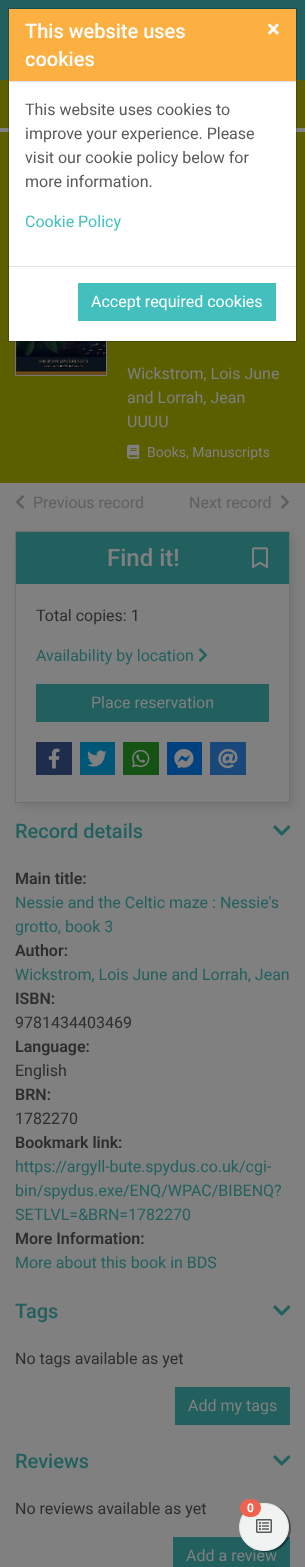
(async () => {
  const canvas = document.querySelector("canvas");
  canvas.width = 305;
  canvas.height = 1567;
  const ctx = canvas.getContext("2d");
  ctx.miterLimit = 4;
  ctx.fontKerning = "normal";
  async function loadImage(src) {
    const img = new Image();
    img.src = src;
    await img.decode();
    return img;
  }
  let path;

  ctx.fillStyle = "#808080";
  ctx.fillRect(0, 0, 305, 1567);
  for (const [x, y, w, h, color] of [
    [0, 0, 305, 80, "#22605f"],
    [0, 80, 305, 48, "#5b5f00"],
    [0, 132, 305, 351, "#5b5f00"],
  ]) {
    ctx.fillStyle = color;
    ctx.fillRect(x, y, w, h);
  }
  ctx.strokeStyle = "#737474";
  ctx.strokeRect(15.5, 239.5, 91, 136);
  ctx.fillStyle = "#ffffff";
  ctx.fillRect(9, 82, 287, 259);
  ctx.drawImage(await loadImage("img/1.png"), 16, 341, 90, 34);
  ctx.strokeStyle = "rgba(0, 0, 0, 0.2)";
  ctx.strokeRect(8.5, 8.5, 288, 333);
  for (const [x, y, w, h, color] of [
    [9, 9, 287, 72, "#fbb041"],
    [9, 81, 287, 1, "#dee2e6"],
    [9, 266, 287, 1, "#dee2e6"],
    [78, 283, 198, 38, "#43c0be"],
  ]) {
    ctx.fillStyle = color;
    ctx.fillRect(x, y, w, h);
  }
  ctx.drawImage(await loadImage("img/2.png"), 127, 444, 13, 15);
  ctx.drawImage(await loadImage("img/3.png"), 16, 495, 8, 14);
  ctx.drawImage(await loadImage("img/4.png"), 281, 495, 8, 14);
  ctx.save();
  path = new Path2D("M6 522H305V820H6ZM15 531H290V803H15Z");
  ctx.clip(path, "evenodd");
  ctx.fillStyle = "#737474";
  ctx.filter = "blur(4px)";
  ctx.beginPath();
  ctx.rect(19, 535, 275, 272);
  ctx.fill();
  ctx.filter = "none";
  ctx.restore();
  ctx.strokeStyle = "#707070";
  ctx.strokeRect(15.5, 531.5, 274, 271);
  ctx.fillStyle = "#22605f";
  ctx.fillRect(16, 532, 273, 52);
  ctx.drawImage(await loadImage("img/5.png"), 252, 547, 16, 22);
  ctx.drawImage(await loadImage("img/6.png"), 198, 648, 10, 14);
  ctx.fillRect(36, 684, 233, 38);
  ctx.fillStyle = "#1e2d4c";
  ctx.fillRect(36, 742, 36, 33);
  ctx.drawImage(await loadImage("img/7.png"), 48, 748, 12, 21);
  ctx.fillStyle = "#005677";
  ctx.fillRect(80, 742, 35, 33);
  ctx.drawImage(await loadImage("img/8.png"), 87, 750, 20, 17);
  ctx.fillStyle = "#155314";
  ctx.fillRect(123, 742, 36, 33);
  ctx.drawImage(await loadImage("img/9.png"), 132, 749, 18, 19);
  ctx.fillStyle = "#004280";
  ctx.fillRect(167, 742, 35, 33);
  ctx.drawImage(await loadImage("img/10.png"), 174, 749, 20, 20);
  ctx.fillStyle = "#1a487a";
  ctx.fillRect(210, 742, 36, 33);
  ctx.drawImage(await loadImage("img/11.png"), 218, 749, 20, 20);
  ctx.drawImage(await loadImage("img/12.png"), 273, 825, 18, 11);
  ctx.drawImage(await loadImage("img/12.png"), 273, 1305, 18, 11);
  ctx.fillStyle = "#22605f";
  ctx.fillRect(175, 1387, 115, 38);
  ctx.drawImage(await loadImage("img/12.png"), 273, 1455, 18, 11);
  ctx.fillRect(173, 1537, 117, 30);
  ctx.fillStyle = "rgba(0, 0, 0, 0.4)";
  ctx.filter = "blur(0.5px)";
  ctx.beginPath();
  ctx.roundRect(241, 1504, 50, 48, 24);
  ctx.fill();
  ctx.filter = "none";
  ctx.font = "500 20px Roboto";
  ctx.fillStyle = "#ffffff";
  ctx.fillText("This website uses", 25, 38);
  ctx.fillText("cookies", 25, 66);
  ctx.font = "bold 24px Roboto";
  ctx.fillText("×", 267, 37);
  ctx.font = "16px Roboto";
  ctx.fillStyle = "#58595b";
  for (const [text, x, y] of [
    ["This website uses cookies to", 25, 115],
    ["improve your experience. Please", 25, 139],
    ["visit our cookie policy below for", 25, 163],
    ["more information.", 25, 187],
  ]) {
    ctx.fillText(text, x, y);
  }
  ctx.fillStyle = "#43c0be";
  ctx.fillText("Cookie Policy", 25, 227);
  ctx.fillStyle = "#ffffff";
  ctx.fillText("Accept required cookies", 91, 307);
  ctx.fillStyle = "#808080";
  for (const [text, x, y] of [
    ["Wickstrom, Lois June", 127, 379],
    ["and Lorrah, Jean", 127, 403],
    ["UUUU", 127, 427],
  ]) {
    ctx.fillText(text, x, y);
  }
  ctx.font = "14px Roboto";
  ctx.fillText("Books, Manuscripts", 147, 457);
  ctx.font = "16px Roboto";
  ctx.fillStyle = "#5e5f60";
  ctx.fillText("Previous record", 33, 508);
  ctx.fillText("Next record", 189, 508);
  ctx.font = "500 24px Roboto";
  ctx.fillStyle = "#808080";
  ctx.fillText("Find it!", 107, 566);
  ctx.font = "16px Roboto";
  ctx.fillStyle = "#2c2d2e";
  ctx.fillText("Total copies: 1", 36, 621);
  ctx.fillStyle = "#22605f";
  ctx.fillText("Availability by location", 36, 661);
  ctx.fillStyle = "#808080";
  ctx.fillText("Place reservation", 91, 708);
  ctx.font = "500 20px Roboto";
  ctx.fillStyle = "#22605f";
  ctx.fillText("Record details", 15, 838);
  ctx.font = "600 16px Roboto";
  ctx.fillStyle = "#2c2d2e";
  ctx.fillText("Main title:", 15, 884);
  ctx.font = "16px Roboto";
  ctx.fillStyle = "#22605f";
  ctx.fillText("Nessie and the Celtic maze : Nessie's", 15, 908);
  ctx.fillText("grotto, book 3", 15, 932);
  ctx.font = "600 16px Roboto";
  ctx.fillStyle = "#2c2d2e";
  ctx.fillText("Author:", 15, 956);
  ctx.font = "16px Roboto";
  ctx.fillStyle = "#22605f";
  ctx.fillText("Wickstrom, Lois June and Lorrah, Jean", 15, 980);
  ctx.font = "600 16px Roboto";
  ctx.fillStyle = "#2c2d2e";
  ctx.fillText("ISBN:", 15, 1004);
  ctx.font = "16px Roboto";
  ctx.fillText("9781434403469", 15, 1028);
  ctx.font = "600 16px Roboto";
  ctx.fillText("Language:", 15, 1052);
  ctx.font = "16px Roboto";
  ctx.fillText("English", 15, 1076);
  ctx.font = "600 16px Roboto";
  ctx.fillText("BRN:", 15, 1100);
  ctx.font = "16px Roboto";
  ctx.fillText("1782270", 15, 1124);
  ctx.font = "600 16px Roboto";
  ctx.fillText("Bookmark link:", 15, 1148);
  ctx.font = "16px Roboto";
  ctx.fillStyle = "#22605f";
  for (const [text, x, y] of [
    ["https://argyll-bute.spydus.co.uk/cgi-", 15, 1172],
    ["bin/spydus.exe/ENQ/WPAC/BIBENQ?", 15, 1196],
    ["SETLVL=&BRN=1782270", 15, 1220],
  ]) {
    ctx.fillText(text, x, y);
  }
  ctx.font = "600 16px Roboto";
  ctx.fillStyle = "#2c2d2e";
  ctx.fillText("More Information:", 15, 1244);
  ctx.font = "16px Roboto";
  ctx.fillStyle = "#22605f";
  ctx.fillText("More about this book in BDS", 15, 1268);
  ctx.font = "500 20px Roboto";
  ctx.fillText("Tags", 15, 1318);
  ctx.font = "16px Roboto";
  ctx.fillStyle = "#2c2d2e";
  ctx.fillText("No tags available as yet", 15, 1364);
  ctx.fillStyle = "#808080";
  ctx.fillText("Add my tags", 188, 1411);
  ctx.font = "500 20px Roboto";
  ctx.fillStyle = "#22605f";
  ctx.fillText("Reviews", 15, 1468);
  ctx.font = "16px Roboto";
  ctx.fillStyle = "#2c2d2e";
  ctx.fillText("No reviews available as yet", 15, 1514);
  ctx.fillStyle = "#808080";
  ctx.fillText("Add a review", 186, 1561);
  ctx.fillStyle = "#f1f2f2";
  ctx.beginPath();
  ctx.roundRect(239.5, 1503.5, 49, 47, 23.5);
  ctx.fill();
  ctx.strokeStyle = "#e6e7e8";
  ctx.stroke();
  ctx.fillStyle = "#f1624e";
  ctx.beginPath();
  ctx.roundRect(240, 1499, 21, 18, 9);
  ctx.fill();
  ctx.font = "bold 12px Roboto";
  ctx.fillStyle = "#ffffff";
  ctx.fillText("0", 247, 1512);
  ctx.drawImage(await loadImage("img/13.png"), 256, 1519, 16, 14);
})();
